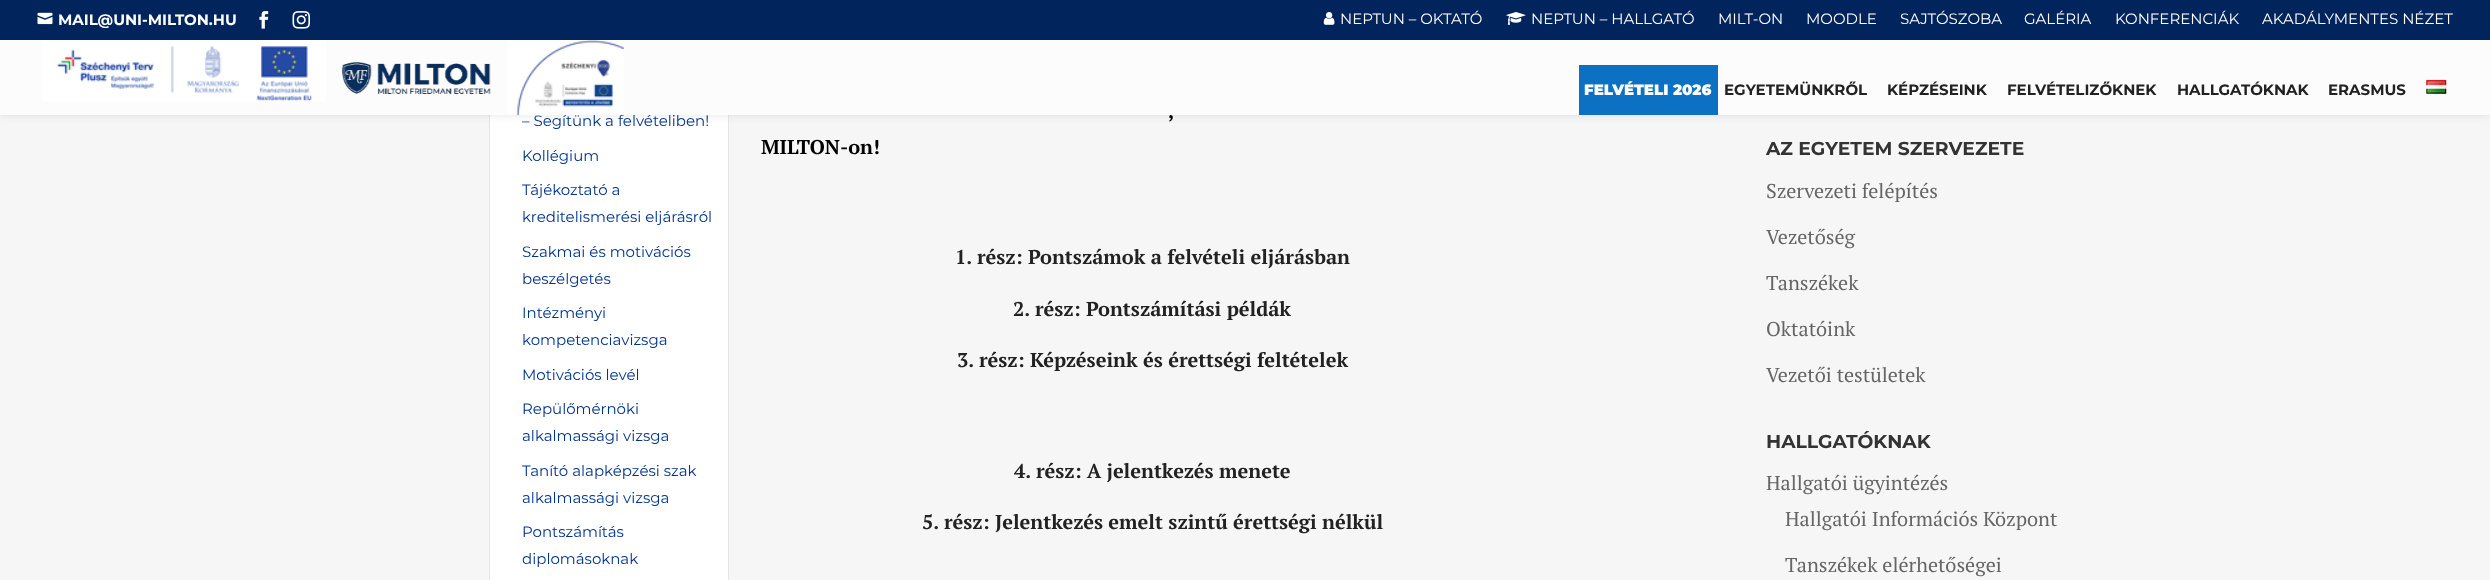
(async () => {
  const canvas = document.querySelector("canvas");
  canvas.width = 2490;
  canvas.height = 580;
  const ctx = canvas.getContext("2d");
  ctx.miterLimit = 4;
  ctx.fontKerning = "normal";
  async function loadImage(src) {
    const img = new Image();
    img.src = src;
    await img.decode();
    return img;
  }

  ctx.fillStyle = "#f6f6f7";
  ctx.fillRect(0, 0, 2490, 580);
  ctx.fillStyle = "#ffffff";
  ctx.fillRect(490, 115, 238, 465);
  ctx.strokeStyle = "#e6e6e6";
  ctx.strokeRect(489.5, -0.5, 239, 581);
  ctx.fillStyle = "rgba(0, 0, 0, 0.1)";
  ctx.filter = "blur(4.5px)";
  ctx.beginPath();
  ctx.rect(0, 40, 2490, 75);
  ctx.fill();
  ctx.filter = "none";
  ctx.fillStyle = "#00245b";
  ctx.fillRect(0, 0, 2490, 40);
  ctx.drawImage(await loadImage("img/1.png"), 37, 12, 16, 13);
  ctx.drawImage(await loadImage("img/2.png"), 259, 11, 10, 18);
  ctx.drawImage(await loadImage("img/3.png"), 292, 11, 18, 18);
  ctx.drawImage(await loadImage("img/4.png"), 1323, 12, 12, 13);
  ctx.drawImage(await loadImage("img/5.png"), 1506, 12, 20, 13);
  ctx.font = "bold 15px Montserrat";
  ctx.fillStyle = "#ffffff";
  ctx.fillText("MAIL@UNI-MILTON.HU", 58, 25);
  ctx.font = "15px Montserrat";
  for (const [text, x, y] of [
    ["NEPTUN – OKTATÓ", 1340, 24],
    ["NEPTUN – HALLGATÓ", 1531, 24],
    ["MILT-ON", 1718, 24],
    ["MOODLE", 1806, 24],
    ["SAJTÓSZOBA", 1900, 24],
    ["GALÉRIA", 2024, 24],
    ["KONFERENCIÁK", 2115, 24],
    ["AKADÁLYMENTES NÉZET", 2262, 24],
  ]) {
    ctx.fillText(text, x, y);
  }
  ctx.fillStyle = "#00338d";
  for (const [text, x, y] of [
    ["– Segítünk a felvételiben!", 522, 126],
    ["Kollégium", 522, 161],
    ["Tájékoztató a", 522, 195],
    ["kreditelismerési eljárásról", 522, 222],
    ["Szakmai és motivációs", 522, 257],
    ["beszélgetés", 522, 284],
    ["Intézményi", 522, 318],
    ["kompetenciavizsga", 522, 345],
    ["Motivációs levél", 522, 380],
    ["Repülőmérnöki", 522, 414],
    ["alkalmassági vizsga", 522, 441],
    ["Tanító alapképzési szak", 522, 476],
    ["alkalmassági vizsga", 522, 503],
    ["Pontszámítás", 522, 537],
    ["diplomásoknak", 522, 564],
  ]) {
    ctx.fillText(text, x, y);
  }
  ctx.font = "bold 20px PT Serif";
  ctx.fillStyle = "#000000";
  ctx.fillText(",", 1168, 118);
  ctx.fillStyle = "#fcfcfc";
  ctx.fillRect(0, 40, 2490, 75);
  ctx.drawImage(await loadImage("img/9.png"), 2426, 79, 21, 15);
  ctx.font = "bold 15px Montserrat";
  ctx.fillStyle = "#222222";
  for (const [text, x, y] of [
    ["ERASMUS", 2328, 95],
    ["HALLGATÓKNAK", 2177, 95],
    ["FELVÉTELIZŐKNEK", 2007, 95],
    ["KÉPZÉSEINK", 1887, 95],
    ["EGYETEMÜNKRŐL", 1724, 95],
  ]) {
    ctx.fillText(text, x, y);
  }
  ctx.fillStyle = "#0c71c3";
  ctx.fillRect(1579, 65, 139, 50);
  ctx.font = "900 15px Montserrat";
  ctx.fillStyle = "#ffffff";
  ctx.fillText("FELVÉTELI 2026", 1584, 95);
  ctx.drawImage(await loadImage("img/8.png"), 507, 40, 117, 76);
  ctx.drawImage(await loadImage("img/7.png"), 342, 62, 149, 32);
  ctx.drawImage(await loadImage("img/6.png"), 42, 40, 285, 62);
  ctx.font = "bold 20px PT Serif";
  ctx.fillStyle = "#000000";
  ctx.fillText("MILTON-on!", 761, 154);
  ctx.fillStyle = "#222222";
  for (const [text, x, y] of [
    ["1. rész: Pontszámok a felvételi eljárásban", 955, 264],
    ["2. rész: Pontszámítási példák", 1013, 316],
    ["3. rész: Képzéseink és érettségi feltételek", 957, 367],
    ["4. rész: A jelentkezés menete", 1014, 478],
    ["5. rész: Jelentkezés emelt szintű érettségi nélkül", 922, 529],
  ]) {
    ctx.fillText(text, x, y);
  }
  ctx.font = "bold 18.75px Montserrat";
  ctx.fillStyle = "#333333";
  ctx.fillText("AZ EGYETEM SZERVEZETE", 1766, 155);
  ctx.font = "20px PT Serif";
  ctx.fillStyle = "#666666";
  for (const [text, x, y] of [
    ["Szervezeti felépítés", 1766, 198],
    ["Vezetőség", 1766, 244],
    ["Tanszékek", 1766, 290],
    ["Oktatóink", 1766, 336],
    ["Vezetői testületek", 1766, 382],
  ]) {
    ctx.fillText(text, x, y);
  }
  ctx.font = "bold 18.75px Montserrat";
  ctx.fillStyle = "#333333";
  ctx.fillText("HALLGATÓKNAK", 1766, 448);
  ctx.font = "20px PT Serif";
  ctx.fillStyle = "#666666";
  for (const [text, x, y] of [
    ["Hallgatói ügyintézés", 1766, 490],
    ["Hallgatói Információs Központ", 1785, 526],
    ["Tanszékek elérhetőségei", 1785, 572],
  ]) {
    ctx.fillText(text, x, y);
  }
})();
